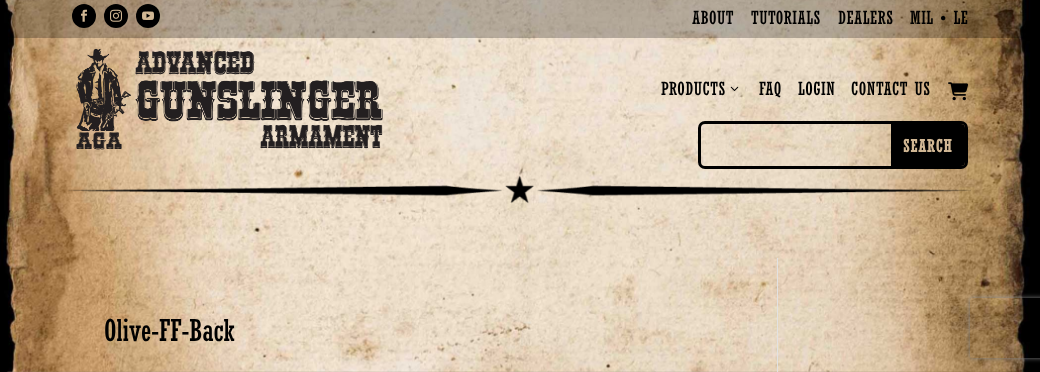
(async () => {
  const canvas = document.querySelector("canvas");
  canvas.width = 1040;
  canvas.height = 372;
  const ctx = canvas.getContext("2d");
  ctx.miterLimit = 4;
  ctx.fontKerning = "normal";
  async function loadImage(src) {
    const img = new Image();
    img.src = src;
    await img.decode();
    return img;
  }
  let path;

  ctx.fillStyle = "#000000";
  ctx.fillRect(0, 0, 1040, 372);
  ctx.drawImage(await loadImage("img/1.png"), 0, 371, 1036, 1);
  ctx.drawImage(await loadImage("img/2.png"), 0, 0, 1036, 372);
  ctx.fillStyle = "rgba(0, 0, 0, 0.25)";
  ctx.fillRect(4, 0, 1020, 38);
  ctx.fillStyle = "#000000";
  ctx.beginPath();
  ctx.arc(84, 16, 12, 0, Math.PI * 2);
  ctx.fill();
  ctx.drawImage(await loadImage("img/3.png"), 81, 9, 6, 13);
  ctx.beginPath();
  ctx.arc(116, 16, 12, 0, Math.PI * 2);
  ctx.fill();
  ctx.drawImage(await loadImage("img/4.png"), 110, 9, 12, 13);
  ctx.beginPath();
  ctx.arc(148, 16, 12, 0, Math.PI * 2);
  ctx.fill();
  ctx.drawImage(await loadImage("img/5.png"), 142, 11, 12, 9);
  ctx.drawImage(await loadImage("img/6.png"), 76, 48, 307, 102);
  ctx.drawImage(await loadImage("img/7.png"), 730, 86, 9, 5);
  ctx.drawImage(await loadImage("img/8.png"), 948, 82, 21, 19);
  ctx.beginPath();
  ctx.roundRect(699.5, 122.5, 267, 45, 5.5);
  ctx.strokeStyle = "#000000";
  ctx.lineWidth = 3;
  ctx.stroke();
  ctx.beginPath();
  ctx.roundRect(891, 124, 74, 42, [0, 4, 4, 0]);
  ctx.fill();
  ctx.drawImage(await loadImage("img/9.png"), 68, 175, 903, 29);
  ctx.fillStyle = "#e2e2e2";
  ctx.fillRect(777, 258, 1, 114);
  ctx.save();
  path = new Path2D("M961 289H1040V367H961ZM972 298H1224C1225 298 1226 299 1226 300V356C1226 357 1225 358 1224 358H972C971 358 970 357 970 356V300C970 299 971 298 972 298Z");
  ctx.clip(path, "evenodd");
  ctx.fillStyle = "#808080";
  ctx.filter = "blur(2.5px)";
  ctx.beginPath();
  ctx.roundRect(970, 298, 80, 60, 2);
  ctx.fill();
  ctx.filter = "none";
  ctx.restore();
  ctx.letterSpacing = "0.5px";
  ctx.font = "500 18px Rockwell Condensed";
  ctx.fillStyle = "#000000";
  for (const [text, x, y] of [
    ["ABOUT", 692, 24],
    ["TUTORIALS", 751, 24],
    ["DEALERS", 838, 24],
    ["MIL • LE", 910, 24],
    ["PRODUCTS", 661, 95],
    ["FAQ", 759, 95],
    ["LOGIN", 798, 95],
    ["CONTACT US", 851, 95],
  ]) {
    ctx.fillText(text, x, y);
  }
  ctx.letterSpacing = "1px";
  ctx.font = "bold 17px Rockwell Condensed";
  ctx.fillStyle = "#d1b794";
  ctx.fillText("SEARCH", 903, 152);
  ctx.letterSpacing = "0px";
  ctx.font = "500 30px Rockwell Condensed";
  ctx.fillStyle = "#000000";
  ctx.fillText("Olive-FF-Back", 104, 341);
})();
